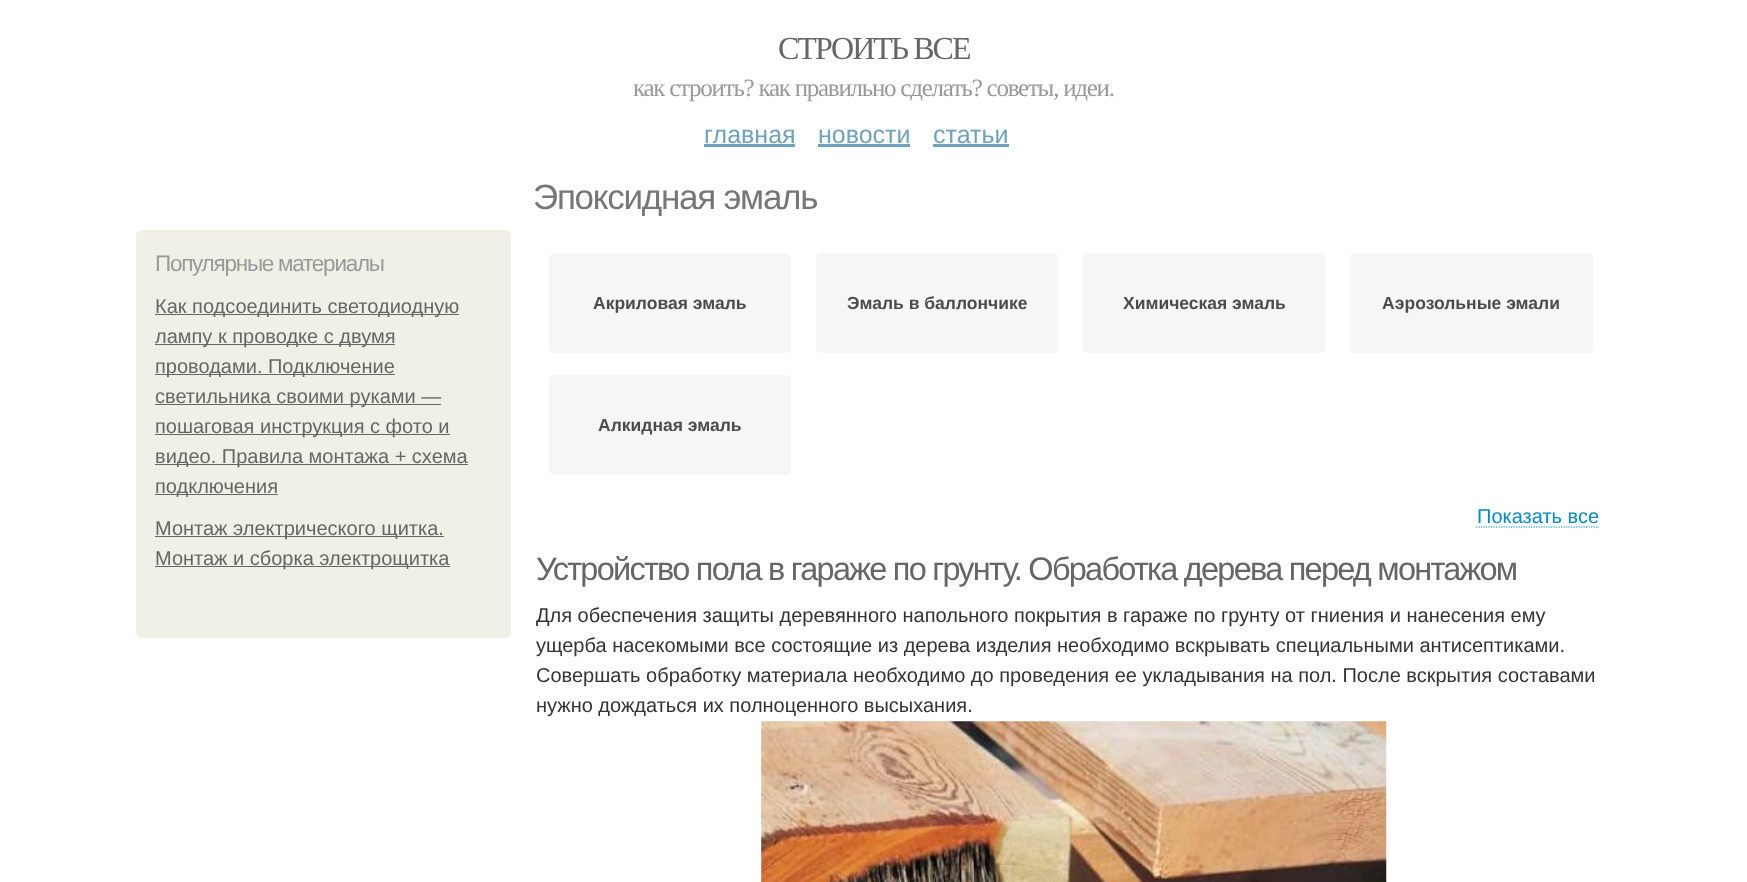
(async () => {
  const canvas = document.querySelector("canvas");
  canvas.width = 1747;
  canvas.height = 882;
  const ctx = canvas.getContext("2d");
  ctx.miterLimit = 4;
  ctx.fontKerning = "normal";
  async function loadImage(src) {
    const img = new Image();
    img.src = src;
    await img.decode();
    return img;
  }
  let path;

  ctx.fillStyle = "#ffffff";
  ctx.fillRect(0, 0, 1747, 882);
  for (const [x, y, w, h, color] of [
    [704, 144, 91, 3, "#6da3bd"],
    [818, 144, 92, 3, "#6da3bd"],
    [933, 144, 76, 3, "#6da3bd"],
  ]) {
    ctx.fillStyle = color;
    ctx.fillRect(x, y, w, h);
  }
  ctx.fillStyle = "#f0f0e7";
  ctx.beginPath();
  ctx.roundRect(136, 230, 375, 408, 6);
  ctx.fill();
  for (const [x, y, w, h, color] of [
    [155, 314, 304, 1, "#666666"],
    [155, 344, 240, 1, "#666666"],
    [155, 374, 240, 1, "#666666"],
    [155, 404, 286, 1, "#666666"],
    [155, 434, 295, 1, "#666666"],
    [155, 464, 313, 1, "#666666"],
    [155, 494, 123, 1, "#666666"],
    [155, 536, 289, 1, "#666666"],
    [155, 566, 295, 1, "#666666"],
  ]) {
    ctx.fillStyle = color;
    ctx.fillRect(x, y, w, h);
  }
  ctx.fillStyle = "#f6f6f6";
  ctx.beginPath();
  ctx.roundRect(549, 253, 242, 100, 5);
  ctx.fill();
  ctx.beginPath();
  ctx.roundRect(816, 253, 242, 100, 5);
  ctx.fill();
  ctx.beginPath();
  ctx.roundRect(1083, 253, 242, 100, 5);
  ctx.fill();
  ctx.beginPath();
  ctx.roundRect(1350, 253, 243, 100, 5);
  ctx.fill();
  ctx.beginPath();
  ctx.roundRect(549, 375, 242, 100, 5);
  ctx.fill();
  path = new Path2D("M1476 527H1599");
  ctx.strokeStyle = "#008bcc";
  ctx.lineWidth = 1.2;
  ctx.setLineDash([1.25, 1.25]);
  ctx.stroke(path);
  ctx.drawImage(await loadImage("img/1.png"), 761, 721, 626, 161);
  ctx.letterSpacing = "-2px";
  ctx.font = "32px Liberation Serif";
  ctx.fillStyle = "#666666";
  ctx.fillText("СТРОИТЬ ВСЕ", 778, 59);
  ctx.letterSpacing = "-1.25px";
  ctx.font = "25px Liberation Serif";
  ctx.fillStyle = "#999999";
  ctx.fillText("как строить? как правильно сделать? советы, идеи.", 633, 96);
  ctx.letterSpacing = "0px";
  ctx.font = "25px Liberation Sans";
  ctx.fillStyle = "#6da3bd";
  for (const [text, x, y] of [
    ["главная", 704, 143],
    ["новости", 818, 143],
    ["статьи", 933, 143],
  ]) {
    ctx.fillText(text, x, y);
  }
  ctx.letterSpacing = "-1.25px";
  ctx.font = "35px Liberation Sans";
  ctx.fillStyle = "#767676";
  ctx.fillText("Эпоксидная эмаль", 533, 209);
  ctx.font = "22.5px Liberation Sans";
  ctx.fillStyle = "#999999";
  ctx.fillText("Популярные материалы", 155, 271);
  ctx.letterSpacing = "0px";
  ctx.font = "20px Liberation Sans";
  ctx.fillStyle = "#666666";
  for (const [text, x, y] of [
    ["Как подсоединить светодиодную", 155, 313],
    ["лампу к проводке с двумя", 155, 343],
    ["проводами. Подключение", 155, 373],
    ["светильника своими руками —", 155, 403],
    ["пошаговая инструкция с фото и", 155, 433],
    ["видео. Правила монтажа + схема", 155, 463],
    ["подключения", 155, 493],
    ["Монтаж электрического щитка.", 155, 535],
    ["Монтаж и сборка электрощитка", 155, 565],
  ]) {
    ctx.fillText(text, x, y);
  }
  ctx.font = "bold 17.5px Liberation Sans";
  ctx.fillStyle = "#4c4c4c";
  for (const [text, x, y] of [
    ["Акриловая эмаль", 593, 309],
    ["Эмаль в баллончике", 847, 309],
    ["Химическая эмаль", 1123, 309],
    ["Аэрозольные эмали", 1382, 309],
    ["Алкидная эмаль", 598, 431],
  ]) {
    ctx.fillText(text, x, y);
  }
  ctx.font = "20px Liberation Sans";
  ctx.fillStyle = "#008bcc";
  ctx.fillText("Показать все", 1477, 523);
  ctx.letterSpacing = "-1.75px";
  ctx.font = "32.5px Liberation Sans";
  ctx.fillStyle = "#666666";
  ctx.fillText("Устройство пола в гараже по грунту. Обработка дерева перед монтажом", 536, 580);
  ctx.letterSpacing = "0px";
  ctx.font = "20px Liberation Sans";
  ctx.fillStyle = "#333333";
  for (const [text, x, y] of [
    ["Для обеспечения защиты деревянного напольного покрытия в гараже по грунту от гниения и нанесения ему", 536, 622],
    ["ущерба насекомыми все состоящие из дерева изделия необходимо вскрывать специальными антисептиками.", 536, 652],
    ["Совершать обработку материала необходимо до проведения ее укладывания на пол. После вскрытия составами", 536, 682],
    ["нужно дождаться их полноценного высыхания.", 536, 712],
  ]) {
    ctx.fillText(text, x, y);
  }
})();
